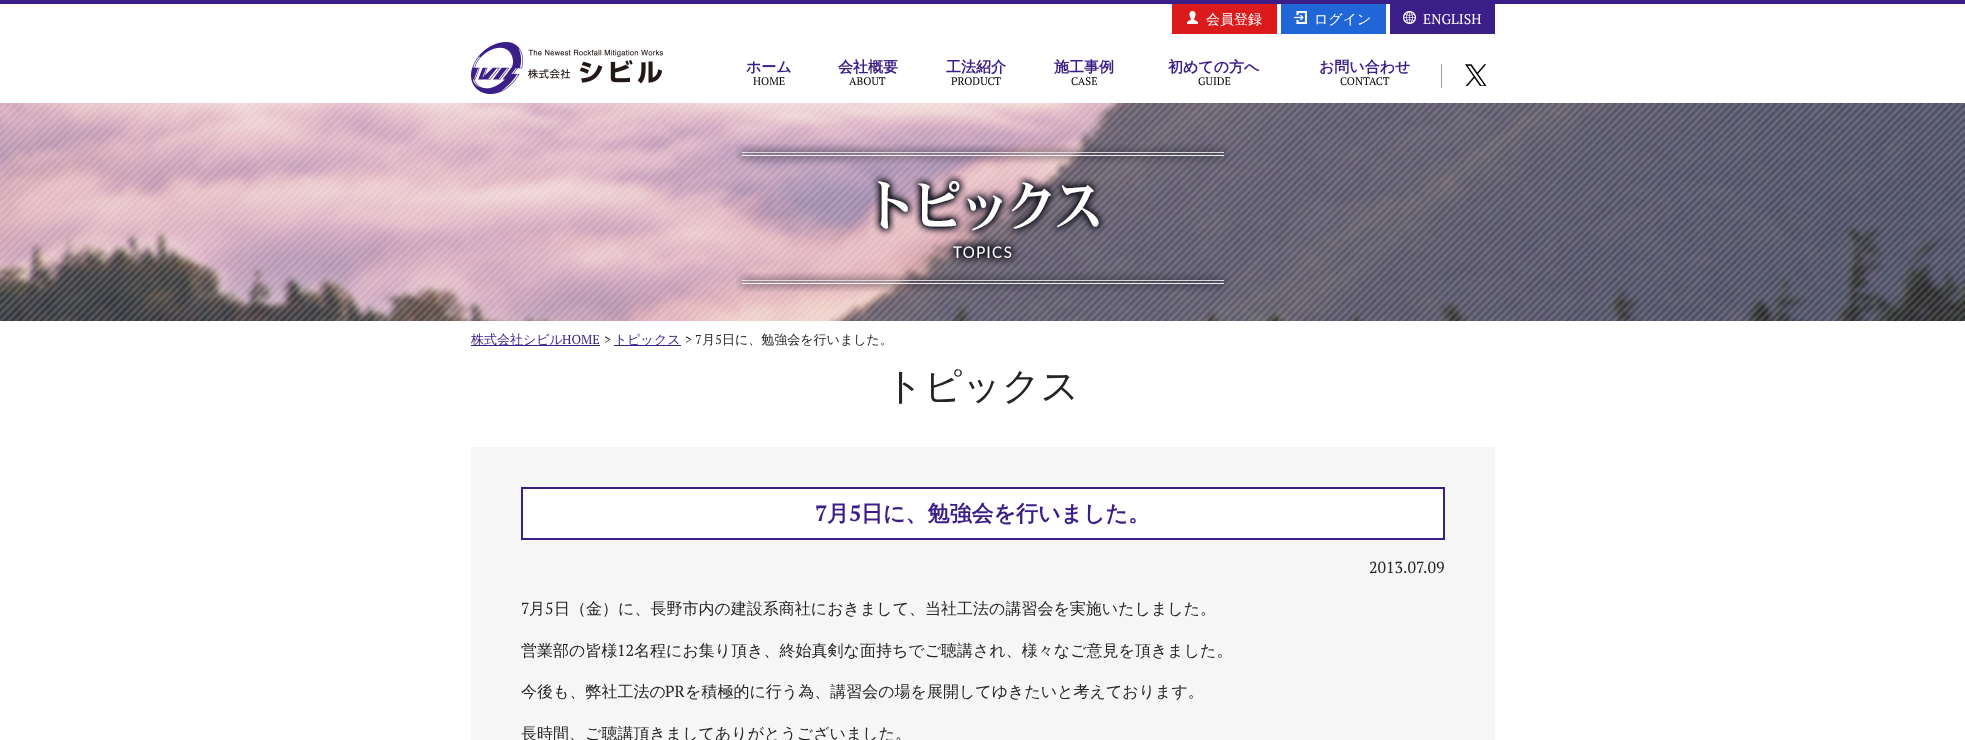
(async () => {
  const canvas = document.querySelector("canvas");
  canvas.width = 1965;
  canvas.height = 740;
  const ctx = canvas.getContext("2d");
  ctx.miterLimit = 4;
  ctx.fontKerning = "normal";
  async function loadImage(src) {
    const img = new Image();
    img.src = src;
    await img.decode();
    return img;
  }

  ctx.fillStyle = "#ffffff";
  ctx.fillRect(0, 0, 1965, 740);
  ctx.fillStyle = "#3b1e87";
  ctx.fillRect(0, 0, 1965, 4);
  ctx.drawImage(await loadImage("img/1.png"), 471, 42, 192, 52);
  ctx.fillStyle = "#db1b1b";
  ctx.fillRect(1172, 4, 105, 30);
  ctx.drawImage(await loadImage("img/2.png"), 1187, 11, 11, 13);
  ctx.fillStyle = "#2166d8";
  ctx.fillRect(1281, 4, 105, 30);
  ctx.drawImage(await loadImage("img/3.png"), 1294, 11, 13, 13);
  ctx.fillStyle = "#3b1e87";
  ctx.fillRect(1390, 4, 105, 30);
  ctx.drawImage(await loadImage("img/4.png"), 1403, 11, 13, 13);
  ctx.fillStyle = "#9f9f9f";
  ctx.fillRect(1441, 64, 1, 24);
  ctx.drawImage(await loadImage("img/5.png"), 1465, 64, 22, 22);
  ctx.drawImage(await loadImage("img/6.png"), 0, 103, 1965, 218);
  ctx.drawImage(await loadImage("img/7.png"), 736, 144, 493, 148);
  for (const [x, y, w, h, color] of [
    [471, 345, 129, 1, "#3b1e87"],
    [614, 345, 67, 1, "#3b1e87"],
    [471, 447, 1024, 293, "#f6f6f6"],
  ]) {
    ctx.fillStyle = color;
    ctx.fillRect(x, y, w, h);
  }
  ctx.fillStyle = "#ffffff";
  ctx.beginPath();
  ctx.rect(522, 488, 922, 51);
  ctx.fill();
  ctx.strokeStyle = "#3b1e87";
  ctx.lineWidth = 2;
  ctx.stroke();
  ctx.font = "500 14px WenQuanYi Zen Hei";
  ctx.fillText("会員登録", 1206, 24);
  ctx.fillText("ログイン", 1314, 24);
  ctx.font = "14px PT Serif";
  ctx.fillText("ENGLISH", 1423, 24);
  ctx.font = "bold 15px WenQuanYi Zen Hei";
  ctx.fillStyle = "#3b1e87";
  ctx.fillText("ホーム", 746, 72);
  ctx.font = "11px PT Serif";
  ctx.fillStyle = "#000000";
  ctx.fillText("HOME", 753, 85);
  ctx.font = "bold 15px WenQuanYi Zen Hei";
  ctx.fillStyle = "#3b1e87";
  ctx.fillText("会社概要", 838, 72);
  ctx.font = "11px PT Serif";
  ctx.fillStyle = "#000000";
  ctx.fillText("ABOUT", 849, 85);
  ctx.font = "bold 15px WenQuanYi Zen Hei";
  ctx.fillStyle = "#3b1e87";
  ctx.fillText("工法紹介", 946, 72);
  ctx.font = "11px PT Serif";
  ctx.fillStyle = "#000000";
  ctx.fillText("PRODUCT", 951, 85);
  ctx.font = "bold 15px WenQuanYi Zen Hei";
  ctx.fillStyle = "#3b1e87";
  ctx.fillText("施工事例", 1054, 72);
  ctx.font = "11px PT Serif";
  ctx.fillStyle = "#000000";
  ctx.fillText("CASE", 1071, 85);
  ctx.font = "bold 15px WenQuanYi Zen Hei";
  ctx.fillStyle = "#3b1e87";
  ctx.fillText("初めての方へ", 1168, 72);
  ctx.font = "11px PT Serif";
  ctx.fillStyle = "#000000";
  ctx.fillText("GUIDE", 1198, 85);
  ctx.font = "bold 15px WenQuanYi Zen Hei";
  ctx.fillStyle = "#3b1e87";
  ctx.fillText("お問い合わせ", 1319, 72);
  ctx.font = "11px PT Serif";
  ctx.fillStyle = "#000000";
  ctx.fillText("CONTACT", 1340, 85);
  ctx.font = "500 13px WenQuanYi Zen Hei";
  ctx.fillStyle = "#3b1e87";
  ctx.fillText("株式会社シビル", 471, 344);
  ctx.font = "13px PT Serif";
  ctx.fillText("HOME", 562, 344);
  ctx.fillStyle = "#252525";
  ctx.fillText(">", 604, 344);
  ctx.font = "500 13px WenQuanYi Zen Hei";
  ctx.fillStyle = "#3b1e87";
  ctx.fillText("トピックス", 614, 344);
  ctx.font = "13px PT Serif";
  ctx.fillStyle = "#252525";
  ctx.fillText("> 7", 685, 344);
  ctx.font = "500 13px WenQuanYi Zen Hei";
  ctx.fillText("月", 702, 344);
  ctx.font = "13px PT Serif";
  ctx.fillText("5", 715, 344);
  ctx.font = "500 13px WenQuanYi Zen Hei";
  ctx.fillText("日に、勉強会を行いました。", 722, 344);
  ctx.font = "500 38px WenQuanYi Zen Hei";
  ctx.fillText("トピックス", 885, 399);
  ctx.font = "bold 22px PT Serif";
  ctx.fillStyle = "#3b1e87";
  ctx.fillText("7", 815, 521);
  ctx.font = "bold 22px WenQuanYi Zen Hei";
  ctx.fillText("月", 827, 521);
  ctx.font = "bold 22px PT Serif";
  ctx.fillText("5", 849, 521);
  ctx.font = "bold 22px WenQuanYi Zen Hei";
  ctx.fillText("日に、勉強会を行いました。", 861, 521);
  ctx.font = "16px PT Serif";
  ctx.fillStyle = "#252525";
  ctx.fillText("2013.07.09", 1369, 573);
  ctx.fillText("7", 521, 614);
  ctx.font = "500 16px WenQuanYi Zen Hei";
  ctx.fillText("月", 529, 614);
  ctx.font = "16px PT Serif";
  ctx.fillText("5", 545, 614);
  ctx.font = "500 16px WenQuanYi Zen Hei";
  ctx.fillText("日（金）に、長野市内の建設系商社におきまして、当社工法の講習会を実施いたしました。", 554, 614);
  ctx.fillText("営業部の皆様", 521, 656);
  ctx.font = "16px PT Serif";
  ctx.fillText("12", 617, 656);
  ctx.font = "500 16px WenQuanYi Zen Hei";
  ctx.fillText("名程にお集り頂き、終始真剣な面持ちでご聴講され、様々なご意見を頂きました。", 634, 656);
  ctx.fillText("今後も、弊社工法の", 521, 697);
  ctx.font = "16px PT Serif";
  ctx.fillText("PR", 665, 697);
  ctx.font = "500 16px WenQuanYi Zen Hei";
  ctx.fillText("を積極的に行う為、講習会の場を展開してゆきたいと考えております。", 685, 697);
  ctx.fillText("長時間、ご聴講頂きましてありがとうございました。", 521, 739);
})();
